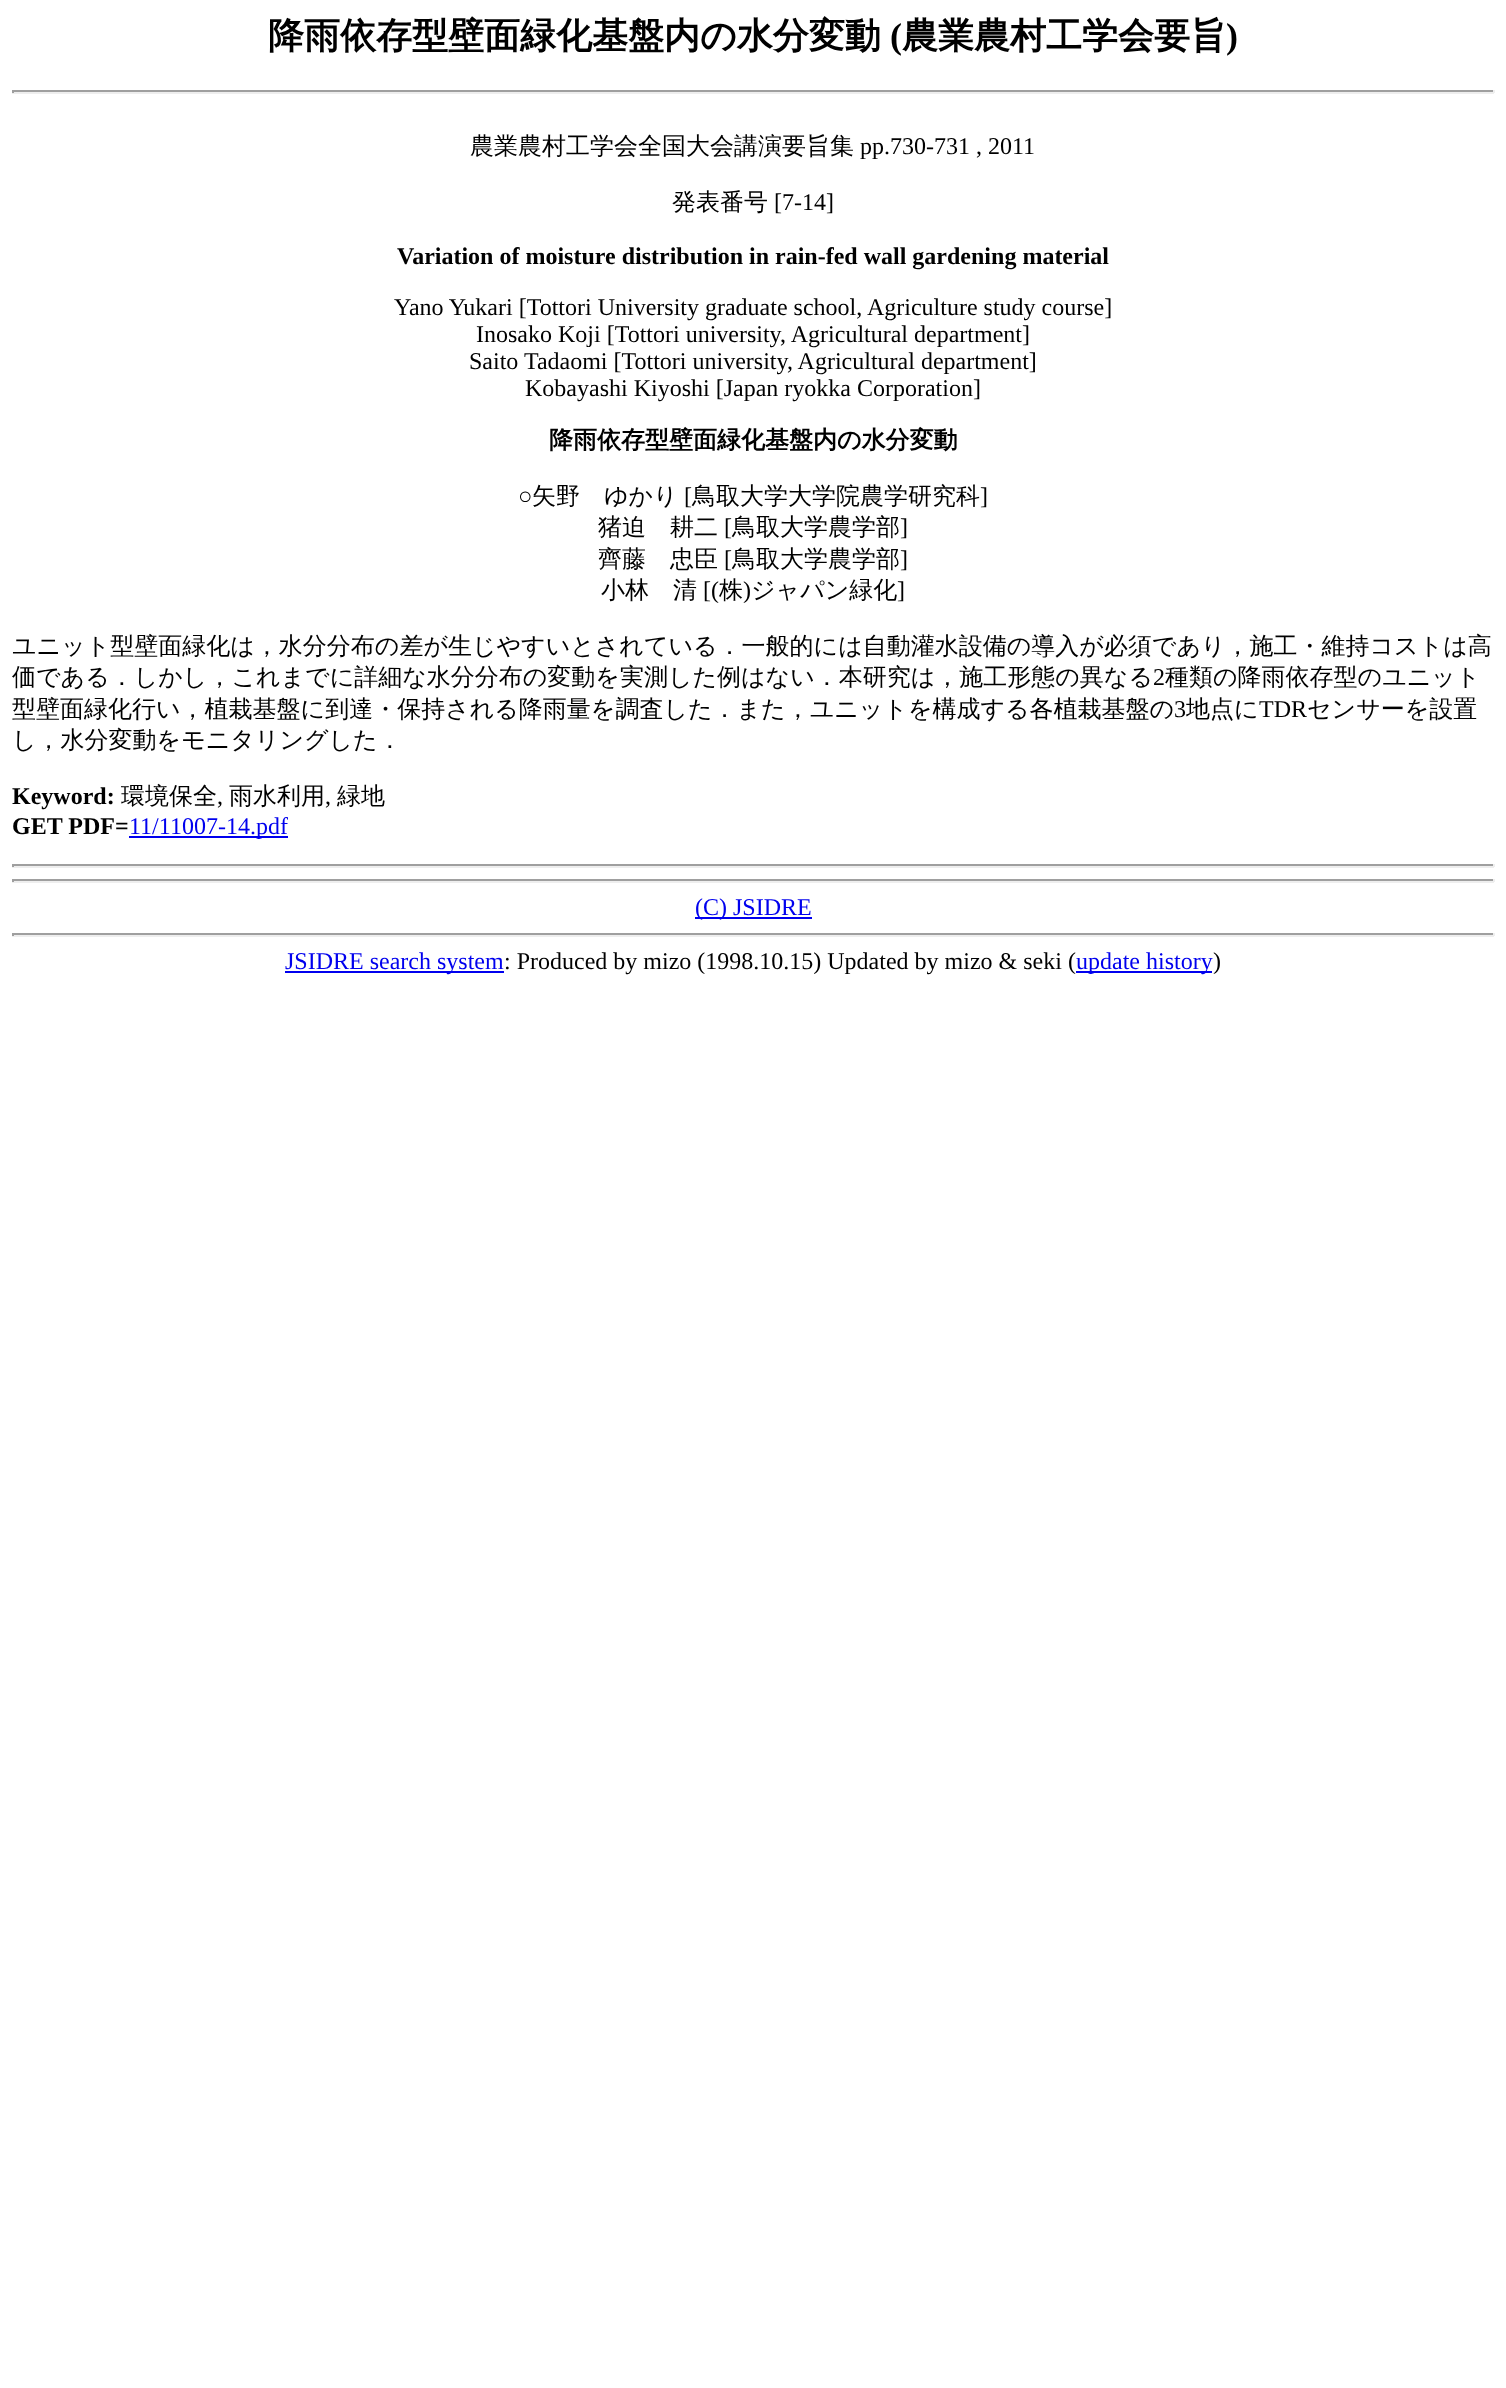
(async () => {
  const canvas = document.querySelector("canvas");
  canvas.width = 1506;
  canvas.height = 2388;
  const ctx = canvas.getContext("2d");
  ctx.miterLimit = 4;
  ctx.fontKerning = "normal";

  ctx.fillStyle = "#ffffff";
  ctx.fillRect(0, 0, 1506, 2388);
  for (const [x, y, w, h, color] of [
    [12, 90, 1482, 2, "#9f9f9f"],
    [1493, 90, 2, 3, "#eeeeee"],
    [12, 92, 1482, 2, "#eeeeee"],
    [12, 90, 2, 3, "#9f9f9f"],
    [129, 836, 159, 2, "#0000ee"],
    [12, 864, 1482, 2, "#9f9f9f"],
    [1493, 864, 2, 3, "#eeeeee"],
    [12, 866, 1482, 2, "#eeeeee"],
    [12, 864, 2, 3, "#9f9f9f"],
    [12, 879, 1482, 2, "#9f9f9f"],
    [1493, 879, 2, 3, "#eeeeee"],
    [12, 881, 1482, 2, "#eeeeee"],
    [12, 879, 2, 3, "#9f9f9f"],
    [695, 917, 117, 2, "#0000ee"],
    [12, 933, 1482, 2, "#9f9f9f"],
    [1493, 933, 2, 3, "#eeeeee"],
    [12, 935, 1482, 2, "#eeeeee"],
    [12, 933, 2, 3, "#9f9f9f"],
    [285, 971, 219, 2, "#0000ee"],
    [1076, 971, 136, 2, "#0000ee"],
  ]) {
    ctx.fillStyle = color;
    ctx.fillRect(x, y, w, h);
  }
  ctx.font = "bold 36px WenQuanYi Zen Hei";
  ctx.fillStyle = "#000000";
  ctx.fillText("降雨依存型壁面緑化基盤内の水分変動", 268, 48);
  ctx.font = "bold 36px Liberation Serif";
  ctx.fillText("(", 890, 48);
  ctx.font = "bold 36px WenQuanYi Zen Hei";
  ctx.fillText("農業農村工学会要旨", 902, 48);
  ctx.font = "bold 36px Liberation Serif";
  ctx.fillText(")", 1226, 48);
  ctx.font = "500 24px WenQuanYi Zen Hei";
  ctx.fillText("農業農村工学会全国大会講演要旨集", 470, 154);
  ctx.font = "24px Liberation Serif";
  ctx.fillText("pp.730-731 , 2011", 860, 154);
  ctx.font = "500 24px WenQuanYi Zen Hei";
  ctx.fillText("発表番号", 672, 210);
  ctx.font = "24px Liberation Serif";
  ctx.fillText("[7-14]", 774, 210);
  ctx.font = "bold 24px Liberation Serif";
  ctx.fillText("Variation of moisture distribution in rain-fed wall gardening material", 397, 264);
  ctx.font = "24px Liberation Serif";
  for (const [text, x, y] of [
    ["Yano Yukari [Tottori University graduate school, Agriculture study course]", 394, 315],
    ["Inosako Koji [Tottori university, Agricultural department]", 476, 342],
    ["Saito Tadaomi [Tottori university, Agricultural department]", 469, 369],
    ["Kobayashi Kiyoshi [Japan ryokka Corporation]", 525, 396],
  ]) {
    ctx.fillText(text, x, y);
  }
  ctx.font = "bold 24px WenQuanYi Zen Hei";
  ctx.fillText("降雨依存型壁面緑化基盤内の水分変動", 549, 448);
  ctx.font = "24px Liberation Serif";
  ctx.fillText("○", 518, 504);
  ctx.font = "500 24px WenQuanYi Zen Hei";
  ctx.fillText("矢野　ゆかり", 532, 504);
  ctx.font = "24px Liberation Serif";
  ctx.fillText("[", 684, 504);
  ctx.font = "500 24px WenQuanYi Zen Hei";
  ctx.fillText("鳥取大学大学院農学研究科", 692, 504);
  ctx.font = "24px Liberation Serif";
  ctx.fillText("]", 980, 504);
  ctx.font = "500 24px WenQuanYi Zen Hei";
  ctx.fillText("猪迫　耕二", 598, 535);
  ctx.font = "24px Liberation Serif";
  ctx.fillText("[", 724, 535);
  ctx.font = "500 24px WenQuanYi Zen Hei";
  ctx.fillText("鳥取大学農学部", 732, 535);
  ctx.font = "24px Liberation Serif";
  ctx.fillText("]", 900, 535);
  ctx.font = "500 24px WenQuanYi Zen Hei";
  ctx.fillText("齊藤　忠臣", 598, 567);
  ctx.font = "24px Liberation Serif";
  ctx.fillText("[", 724, 567);
  ctx.font = "500 24px WenQuanYi Zen Hei";
  ctx.fillText("鳥取大学農学部", 732, 567);
  ctx.font = "24px Liberation Serif";
  ctx.fillText("]", 900, 567);
  ctx.font = "500 24px WenQuanYi Zen Hei";
  ctx.fillText("小林　清", 601, 598);
  ctx.font = "24px Liberation Serif";
  ctx.fillText("[(", 703, 598);
  ctx.font = "500 24px WenQuanYi Zen Hei";
  ctx.fillText("株", 719, 598);
  ctx.font = "24px Liberation Serif";
  ctx.fillText(")", 743, 598);
  ctx.font = "500 24px WenQuanYi Zen Hei";
  ctx.fillText("ジャパン緑化", 751, 598);
  ctx.font = "24px Liberation Serif";
  ctx.fillText("]", 897, 598);
  ctx.font = "500 24px WenQuanYi Zen Hei";
  ctx.fillText("ユニット型壁面緑化は，水分分布の差が生じやすいとされている．一般的には自動灌水設備の導入が必須であり，施工・維持コストは高", 12, 654);
  ctx.fillText("価である．しかし，これまでに詳細な水分分布の変動を実測した例はない．本研究は，施工形態の異なる", 12, 685);
  ctx.font = "24px Liberation Serif";
  ctx.fillText("2", 1153, 685);
  ctx.font = "500 24px WenQuanYi Zen Hei";
  ctx.fillText("種類の降雨依存型のユニット", 1165, 685);
  ctx.fillText("型壁面緑化行い，植栽基盤に到達・保持される降雨量を調査した．また，ユニットを構成する各植栽基盤の", 12, 717);
  ctx.font = "24px Liberation Serif";
  ctx.fillText("3", 1174, 717);
  ctx.font = "500 24px WenQuanYi Zen Hei";
  ctx.fillText("地点に", 1186, 717);
  ctx.font = "24px Liberation Serif";
  ctx.fillText("TDR", 1259, 717);
  ctx.font = "500 24px WenQuanYi Zen Hei";
  ctx.fillText("センサーを設置", 1307, 717);
  ctx.fillText("し，水分変動をモニタリングした．", 12, 748);
  ctx.font = "bold 24px Liberation Serif";
  ctx.fillText("Keyword:", 12, 804);
  ctx.font = "500 24px WenQuanYi Zen Hei";
  ctx.fillText("環境保全", 121, 804);
  ctx.font = "24px Liberation Serif";
  ctx.fillText(",", 217, 804);
  ctx.font = "500 24px WenQuanYi Zen Hei";
  ctx.fillText("雨水利用", 229, 804);
  ctx.font = "24px Liberation Serif";
  ctx.fillText(",", 325, 804);
  ctx.font = "500 24px WenQuanYi Zen Hei";
  ctx.fillText("緑地", 337, 804);
  ctx.font = "bold 24px Liberation Serif";
  ctx.fillText("GET PDF=", 12, 834);
  ctx.font = "24px Liberation Serif";
  ctx.fillStyle = "#0000ee";
  for (const [text, x, y] of [
    ["11/11007-14.pdf", 129, 834],
    ["(C) JSIDRE", 695, 915],
    ["JSIDRE search system", 285, 969],
  ]) {
    ctx.fillText(text, x, y);
  }
  ctx.fillStyle = "#000000";
  ctx.fillText(": Produced by mizo (1998.10.15) Updated by mizo & seki (", 504, 969);
  ctx.fillStyle = "#0000ee";
  ctx.fillText("update history", 1076, 969);
  ctx.fillStyle = "#000000";
  ctx.fillText(")", 1213, 969);
})();
